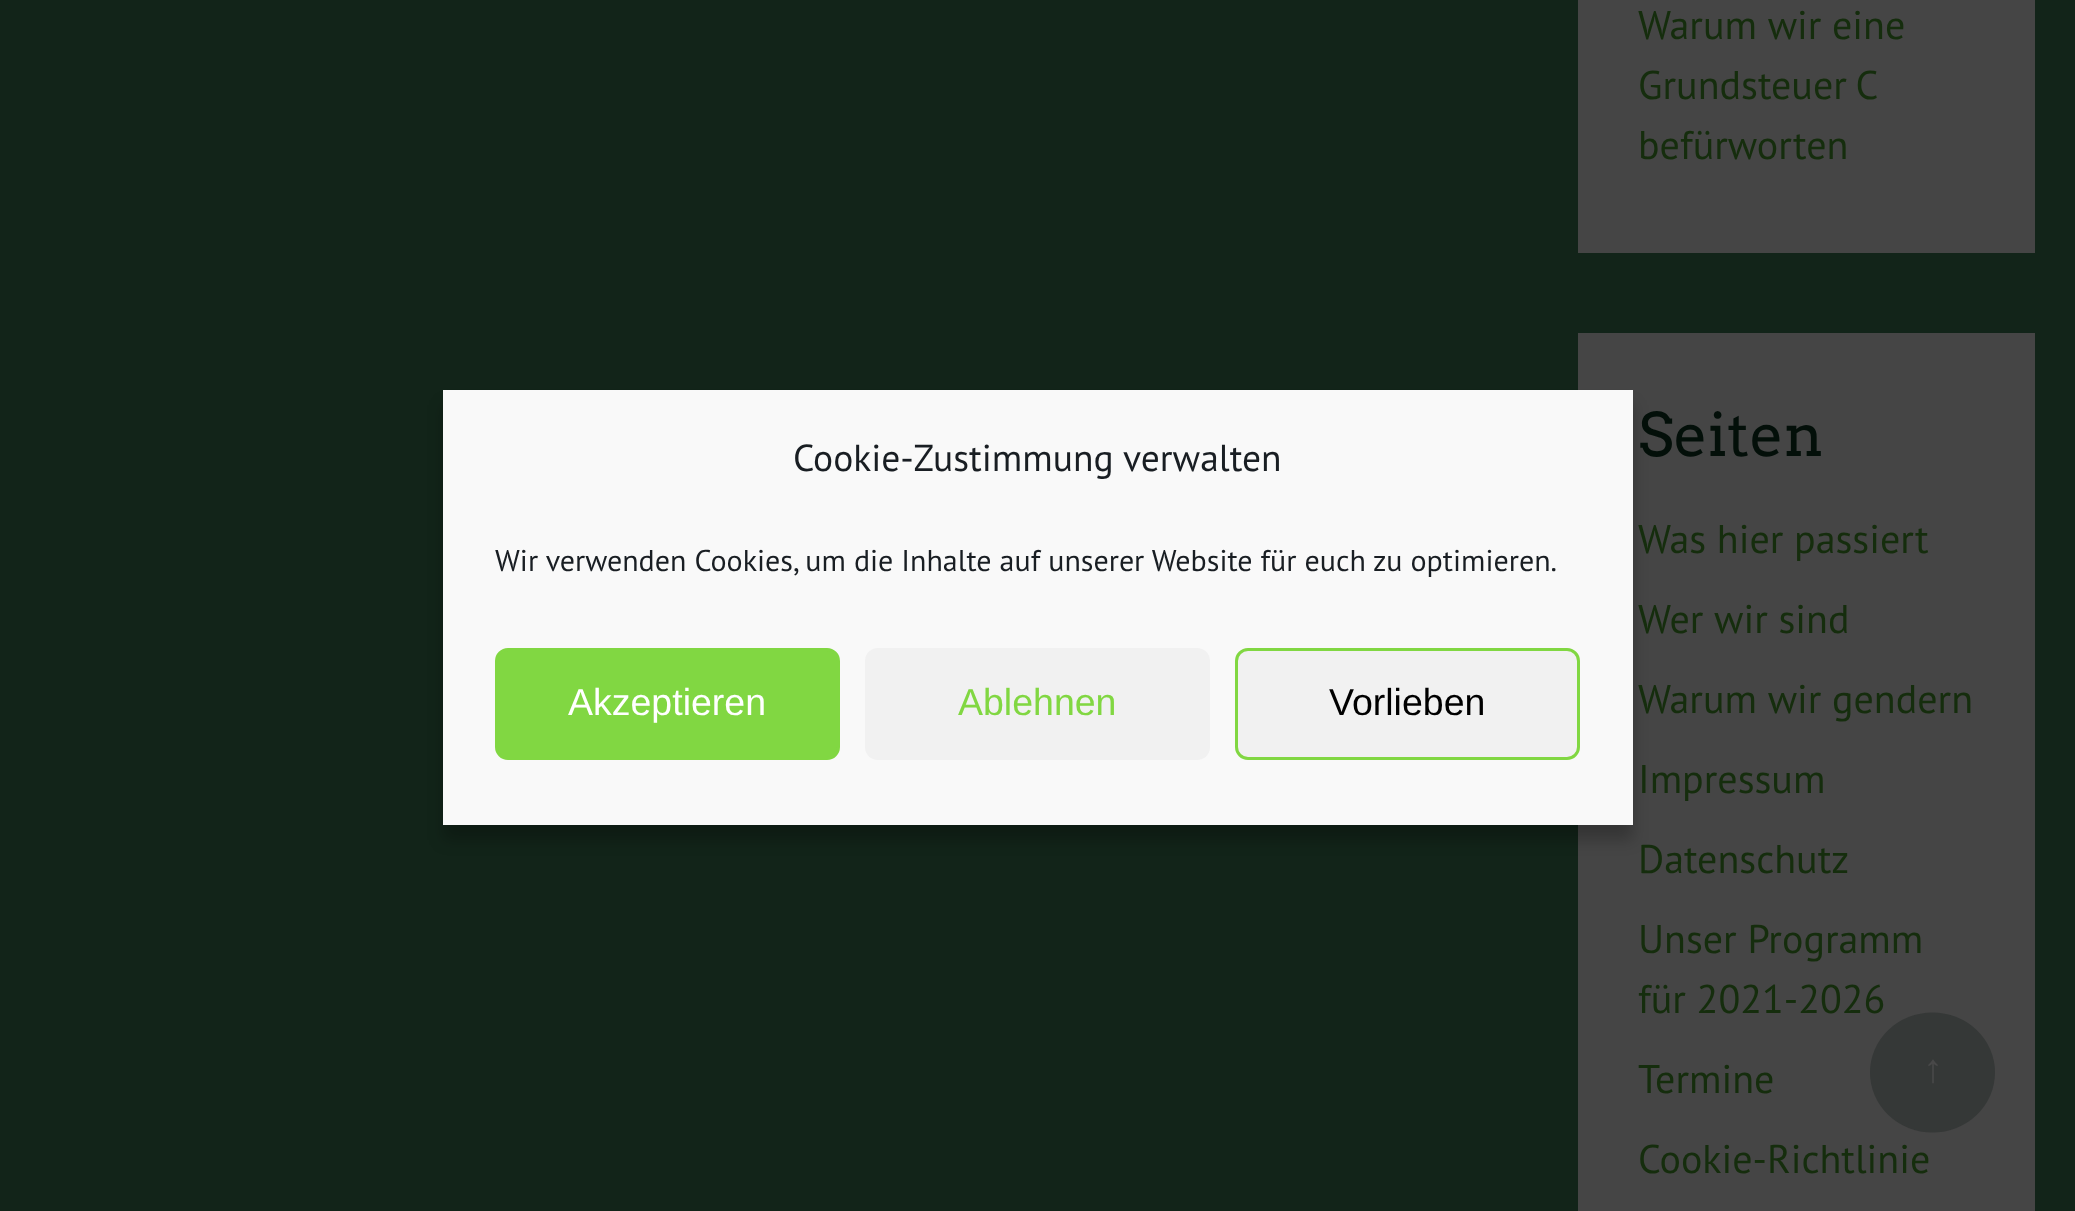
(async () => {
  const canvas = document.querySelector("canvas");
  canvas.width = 2075;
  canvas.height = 1211;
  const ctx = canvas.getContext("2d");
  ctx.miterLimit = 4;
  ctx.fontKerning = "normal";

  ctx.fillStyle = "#122419";
  ctx.fillRect(0, 0, 2075, 1211);
  ctx.fillStyle = "#454545";
  ctx.fillRect(1578, 333, 457, 878);
  ctx.fillStyle = "rgba(0, 0, 0, 0.23)";
  ctx.filter = "blur(7.5px)";
  ctx.beginPath();
  ctx.rect(443, 405, 1190, 435);
  ctx.fill();
  ctx.filter = "none";
  ctx.fillStyle = "#f9f9f9";
  ctx.fillRect(443, 390, 1190, 435);
  ctx.fillStyle = "#81d742";
  ctx.beginPath();
  ctx.roundRect(496.5, 649.5, 342, 109, 11.5);
  ctx.fill();
  ctx.strokeStyle = "#81d742";
  ctx.lineWidth = 3;
  ctx.stroke();
  ctx.fillStyle = "#f1f1f1";
  ctx.beginPath();
  ctx.roundRect(865, 648, 345, 112, 13);
  ctx.fill();
  ctx.beginPath();
  ctx.roundRect(1236.5, 649.5, 342, 109, 11.5);
  ctx.fill();
  ctx.stroke();
  ctx.fillStyle = "#454545";
  ctx.fillRect(1578, 0, 457, 253);
  ctx.font = "37.5px PT Sans";
  ctx.fillStyle = "#191e23";
  ctx.fillText("Cookie-Zustimmung verwalten", 793, 471);
  ctx.font = "30px PT Sans";
  ctx.fillText("Wir verwenden Cookies, um die Inhalte auf unserer Website für euch zu optimieren.", 495, 571);
  ctx.font = "37.5px Liberation Sans";
  ctx.fillStyle = "#ffffff";
  ctx.fillText("Akzeptieren", 568, 715);
  ctx.fillStyle = "#81d742";
  ctx.fillText("Ablehnen", 958, 715);
  ctx.fillStyle = "#000000";
  ctx.fillText("Vorlieben", 1329, 715);
  ctx.font = "40px PT Sans";
  ctx.fillStyle = "#152d0d";
  ctx.fillText("Warum wir eine", 1638, 39);
  ctx.wordSpacing = "-2px";
  ctx.fillText("Grundsteuer C", 1638, 99);
  ctx.wordSpacing = "0px";
  ctx.fillText("befürworten", 1638, 159);
  ctx.font = "60px Arvo";
  ctx.fillStyle = "#030f09";
  ctx.fillText("Seiten", 1638, 456);
  ctx.font = "40px PT Sans";
  ctx.fillStyle = "#152d0d";
  for (const [text, x, y] of [
    ["Was hier passiert", 1638, 553],
    ["Wer wir sind", 1638, 633],
    ["Warum wir gendern", 1638, 713],
    ["Impressum", 1638, 793],
    ["Datenschutz", 1638, 873],
    ["Unser Programm", 1638, 953],
    ["für 2021-2026", 1638, 1013],
    ["Termine", 1638, 1093],
    ["Cookie-Richtlinie", 1638, 1173],
  ]) {
    ctx.fillText(text, x, y);
  }
  ctx.fillStyle = "#353837";
  ctx.beginPath();
  ctx.ellipse(1932.5, 1072.5, 62.5, 60, 0, 0, Math.PI * 2);
  ctx.fill();
  ctx.font = "40px Liberation Sans";
  ctx.fillStyle = "#484848";
  ctx.fillText("↑", 1923, 1082);
})();
